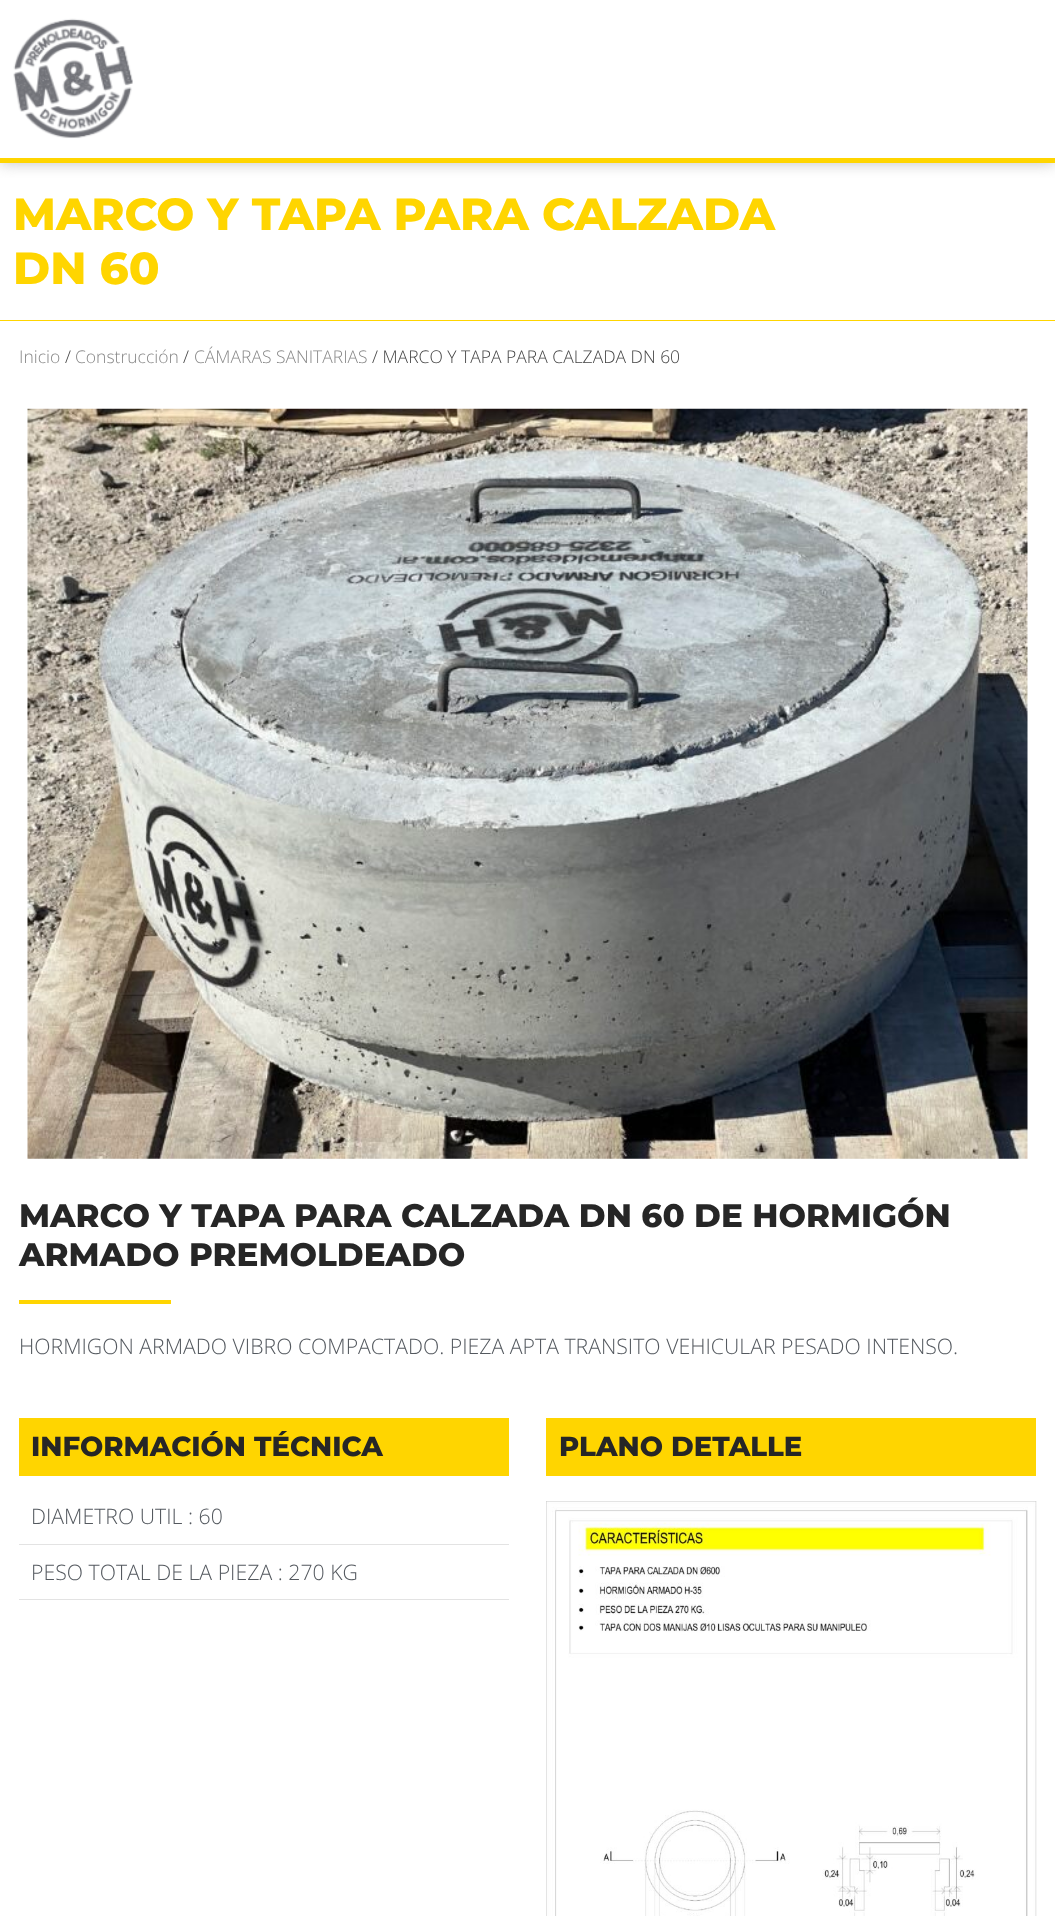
(async () => {
  const canvas = document.querySelector("canvas");
  canvas.width = 1055;
  canvas.height = 1916;
  const ctx = canvas.getContext("2d");
  ctx.miterLimit = 4;
  ctx.fontKerning = "normal";
  async function loadImage(src) {
    const img = new Image();
    img.src = src;
    await img.decode();
    return img;
  }

  ctx.fillStyle = "#ffffff";
  ctx.fillRect(0, 0, 1055, 1916);
  ctx.save();
  ctx.beginPath();
  ctx.rect(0, 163, 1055, 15);
  ctx.clip();
  ctx.fillStyle = "#c3c3c3";
  ctx.filter = "blur(7.5px)";
  ctx.beginPath();
  ctx.rect(0, 0, 1055, 163);
  ctx.fill();
  ctx.filter = "none";
  ctx.restore();
  ctx.fillStyle = "#ffd500";
  ctx.fillRect(0, 158, 1055, 5);
  ctx.drawImage(await loadImage("img/1.png"), 13, 18, 120, 121);
  ctx.fillRect(0, 320, 1055, 1);
  ctx.drawImage(await loadImage("img/2.png"), 27, 408, 1001, 751);
  for (const [x, y, w, h, color] of [
    [19, 1300, 152, 4, "#ffd500"],
    [19, 1418, 490, 58, "#ffd500"],
    [19, 1544, 490, 1, "#e3e3e3"],
    [19, 1599, 490, 1, "#e3e3e3"],
    [546, 1418, 490, 58, "#ffd500"],
  ]) {
    ctx.fillStyle = color;
    ctx.fillRect(x, y, w, h);
  }
  ctx.drawImage(await loadImage("img/3.png"), 546, 1501, 491, 415);
  ctx.font = "800 45px Montserrat";
  ctx.fillText("MARCO Y TAPA PARA CALZADA", 13, 230);
  ctx.fillText("DN 60", 13, 284);
  ctx.font = "300 17.5px Open Sans";
  ctx.fillStyle = "#888888";
  ctx.fillText("Inicio", 19, 363);
  ctx.fillStyle = "#444444";
  ctx.fillText("/", 65, 363);
  ctx.fillStyle = "#888888";
  ctx.fillText("Construcción", 75, 363);
  ctx.fillStyle = "#444444";
  ctx.fillText("/", 183, 363);
  ctx.fillStyle = "#888888";
  ctx.fillText("CÁMARAS SANITARIAS", 194, 363);
  ctx.fillStyle = "#444444";
  ctx.fillText("/ MARCO Y TAPA PARA CALZADA DN 60", 372, 363);
  ctx.font = "800 32.5px Montserrat";
  ctx.fillStyle = "#262626";
  ctx.fillText("MARCO Y TAPA PARA CALZADA DN 60 DE HORMIGÓN", 19, 1227);
  ctx.fillText("ARMADO PREMOLDEADO", 19, 1266);
  ctx.font = "300 21.25px Open Sans";
  ctx.fillStyle = "#54595f";
  ctx.fillText("HORMIGON ARMADO VIBRO COMPACTADO. PIEZA APTA TRANSITO VEHICULAR PESADO INTENSO.", 19, 1354);
  ctx.font = "800 27.5px Montserrat";
  ctx.fillStyle = "#262626";
  ctx.fillText("INFORMACIÓN TÉCNICA", 31, 1456);
  ctx.font = "300 21.25px Open Sans";
  ctx.fillStyle = "#54595f";
  ctx.fillText("DIAMETRO UTIL : 60", 31, 1524);
  ctx.fillText("PESO TOTAL DE LA PIEZA : 270 KG", 31, 1580);
  ctx.font = "800 27.5px Montserrat";
  ctx.fillStyle = "#262626";
  ctx.fillText("PLANO DETALLE", 559, 1456);
})();
